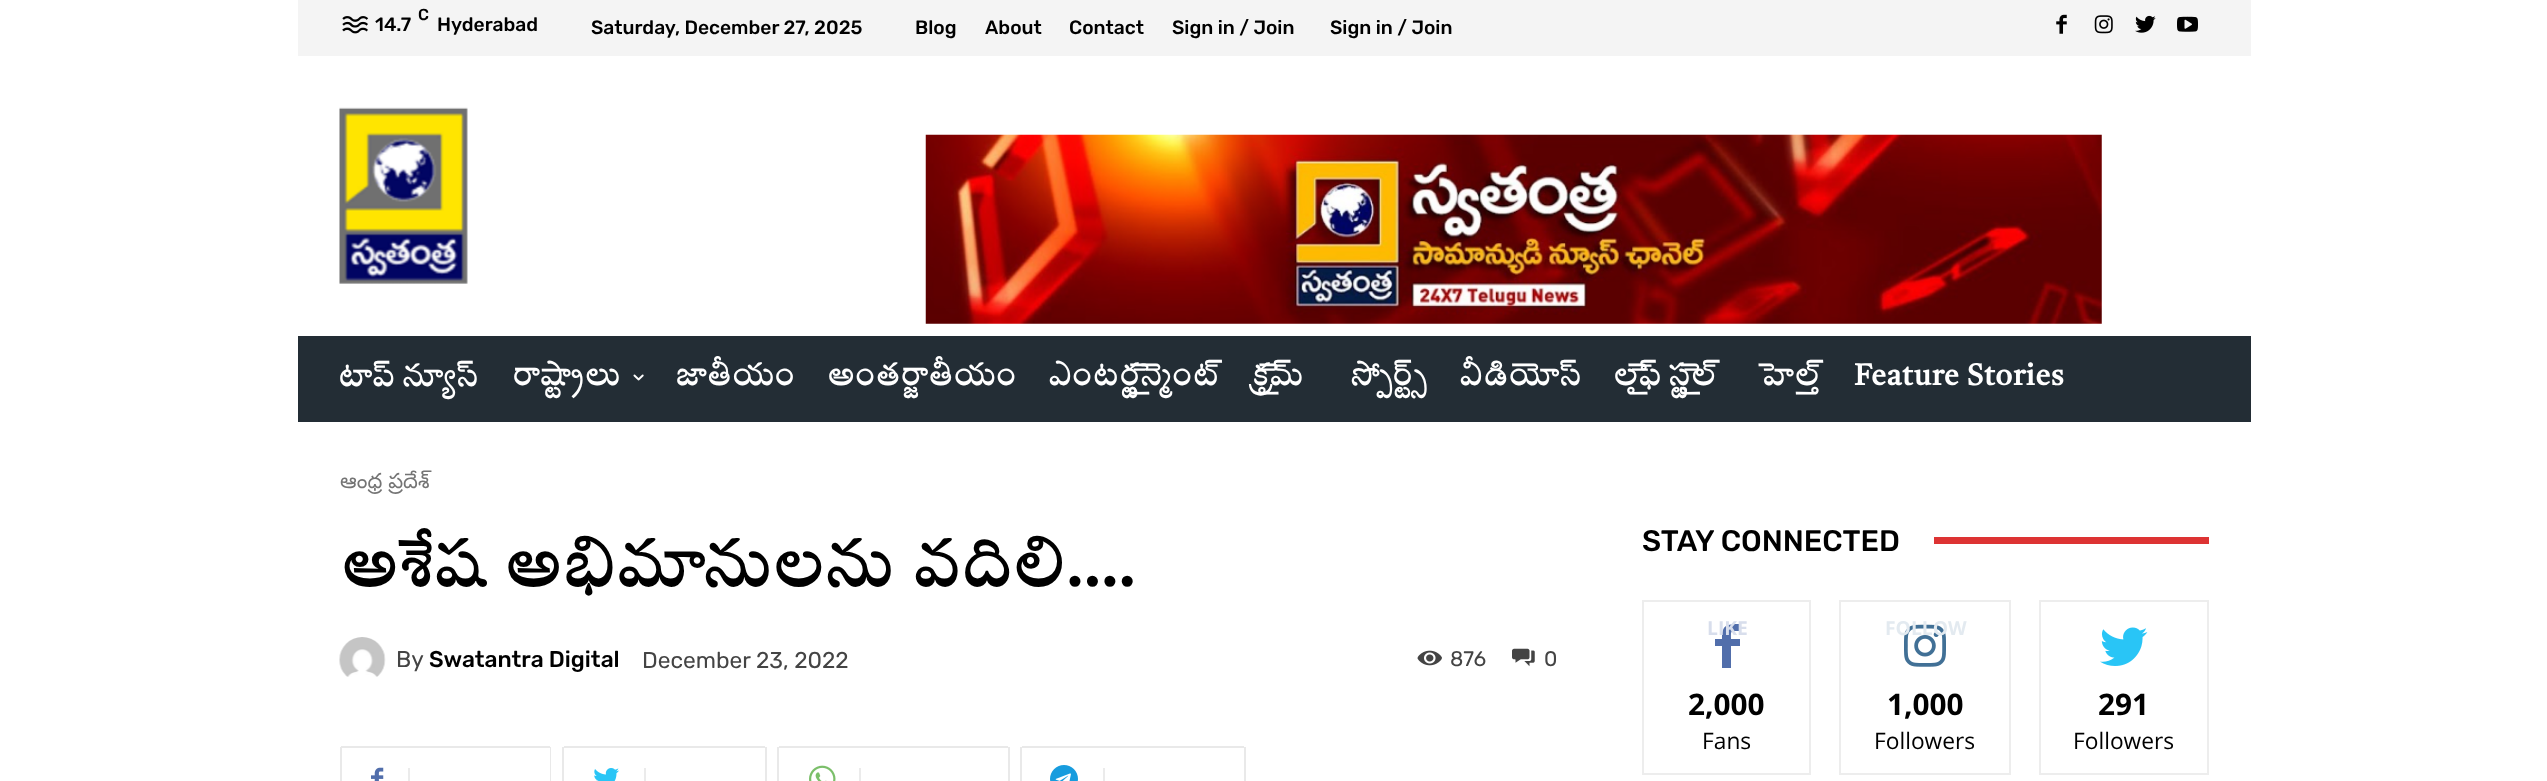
(async () => {
  const canvas = document.querySelector("canvas");
  canvas.width = 2547;
  canvas.height = 781;
  const ctx = canvas.getContext("2d");
  ctx.miterLimit = 4;
  ctx.fontKerning = "normal";
  async function loadImage(src) {
    const img = new Image();
    img.src = src;
    await img.decode();
    return img;
  }
  let path;

  ctx.fillStyle = "#ffffff";
  ctx.fillRect(0, 0, 2547, 781);
  ctx.fillStyle = "#f4f4f4";
  ctx.fillRect(298, 0, 1953, 56);
  ctx.drawImage(await loadImage("img/1.png"), 342, 16, 27, 18);
  ctx.drawImage(await loadImage("img/2.png"), 2056, 14, 11, 20);
  ctx.drawImage(await loadImage("img/3.png"), 2094, 15, 19, 19);
  ctx.drawImage(await loadImage("img/4.png"), 2135, 15, 21, 18);
  ctx.drawImage(await loadImage("img/5.png"), 2177, 16, 21, 16);
  ctx.drawImage(await loadImage("img/6.png"), 339, 107, 129, 177);
  ctx.drawImage(await loadImage("img/7.png"), 925, 134, 1177, 190);
  ctx.fillStyle = "#232d35";
  ctx.fillRect(298, 336, 1953, 86);
  ctx.drawImage(await loadImage("img/8.png"), 633, 374, 11, 7);
  ctx.drawImage(await loadImage("img/9.png"), 339, 637, 47, 40);
  ctx.drawImage(await loadImage("img/10.png"), 1417, 650, 25, 16);
  ctx.drawImage(await loadImage("img/11.png"), 1512, 648, 23, 19);
  for (const [x, y, w, h, color] of [
    [341, 746, 209, 2, "#e9e9e9"],
    [550, 747, 1, 34, "#e9e9e9"],
    [408, 768, 2, 13, "#ebebeb"],
    [340, 747, 2, 34, "#e9e9e9"],
  ]) {
    ctx.fillStyle = color;
    ctx.fillRect(x, y, w, h);
  }
  ctx.drawImage(await loadImage("img/12.png"), 371, 767, 13, 14);
  for (const [x, y, w, h, color] of [
    [564, 746, 201, 2, "#e9e9e9"],
    [765, 747, 2, 34, "#e9e9e9"],
    [644, 768, 2, 13, "#ebebeb"],
    [562, 747, 2, 34, "#e9e9e9"],
  ]) {
    ctx.fillStyle = color;
    ctx.fillRect(x, y, w, h);
  }
  ctx.drawImage(await loadImage("img/13.png"), 594, 768, 25, 13);
  for (const [x, y, w, h, color] of [
    [779, 746, 229, 2, "#e9e9e9"],
    [1008, 747, 2, 34, "#e9e9e9"],
    [859, 768, 2, 13, "#ebebeb"],
    [777, 747, 2, 34, "#e9e9e9"],
  ]) {
    ctx.fillStyle = color;
    ctx.fillRect(x, y, w, h);
  }
  ctx.drawImage(await loadImage("img/14.png"), 809, 765, 27, 16);
  for (const [x, y, w, h, color] of [
    [1022, 746, 222, 2, "#e9e9e9"],
    [1244, 747, 2, 34, "#e9e9e9"],
    [1103, 768, 2, 13, "#ebebeb"],
    [1020, 747, 2, 34, "#e9e9e9"],
  ]) {
    ctx.fillStyle = color;
    ctx.fillRect(x, y, w, h);
  }
  ctx.drawImage(await loadImage("img/15.png"), 1050, 765, 28, 16);
  ctx.fillStyle = "#dd3333";
  ctx.fillRect(1934, 537, 275, 7);
  ctx.strokeStyle = "#ededed";
  ctx.lineWidth = 2;
  ctx.strokeRect(1643, 601, 167, 173);
  ctx.fillStyle = "#516eab";
  path = new Path2D("M1740 631C1730 631 1731 630 1731 639H1740V646H1731V668H1722V646H1715V639H1722C1722 625 1726 624 1740 624Z");
  ctx.fill(path);
  ctx.strokeRect(1840, 601, 170, 173);
  ctx.drawImage(await loadImage("img/16.png"), 1904, 624, 42, 43);
  ctx.strokeRect(2040, 601, 168, 173);
  ctx.drawImage(await loadImage("img/17.png"), 2100, 627, 48, 39);
  ctx.font = "500 16px Rubik";
  ctx.fillStyle = "#000000";
  ctx.fillText("C", 418, 20);
  ctx.font = "500 19.25px Rubik";
  for (const [text, x, y] of [
    ["14.7", 375, 31],
    ["Hyderabad", 437, 31],
    ["Saturday, December 27, 2025", 591, 34],
    ["Blog", 915, 34],
    ["About", 985, 34],
    ["Contact", 1069, 34],
    ["Sign in / Join", 1172, 34],
    ["Sign in / Join", 1330, 34],
  ]) {
    ctx.fillText(text, x, y);
  }
  ctx.letterSpacing = "0.75px";
  ctx.wordSpacing = "-2px";
  ctx.font = "bold 29.75px Tiro Telugu";
  ctx.fillStyle = "#ffffff";
  ctx.fillText("టాప్ న్యూస్", 338, 386);
  ctx.wordSpacing = "0px";
  for (const [text, x, y] of [
    ["రాష్ట్రాలు", 512, 385],
    ["జాతీయం", 675, 385],
    ["అంతర్జాతీయం", 827, 385],
    ["ఎంటర్టైన్మెంట్", 1048, 385],
    ["క్రైమ్", 1252, 385],
    ["స్పోర్ట్స్", 1350, 385],
    ["వీడియోస్", 1459, 385],
  ]) {
    ctx.fillText(text, x, y);
  }
  ctx.wordSpacing = "-2px";
  ctx.fillText("లైఫ్ స్టైల్", 1613, 385);
  ctx.wordSpacing = "0px";
  ctx.fillText("హెల్త్", 1758, 385);
  ctx.fillText("Feature Stories", 1854, 385);
  ctx.letterSpacing = "0px";
  ctx.font = "21px Noto Sans Telugu";
  ctx.fillStyle = "#747474";
  ctx.fillText("ఆంధ్ర ప్రదేశ్", 340, 488);
  ctx.wordSpacing = "2px";
  ctx.font = "bold 63px Tiro Telugu";
  ctx.fillStyle = "#000000";
  ctx.fillText("అశేష అభిమానులను వదిలి….", 340, 586);
  ctx.wordSpacing = "0px";
  ctx.font = "22.75px Rubik";
  ctx.fillStyle = "#444444";
  ctx.fillText("By", 396, 667);
  ctx.font = "500 22.75px Rubik";
  ctx.fillStyle = "#000000";
  ctx.fillText("Swatantra Digital", 429, 667);
  ctx.font = "22.75px Rubik";
  ctx.fillStyle = "#444444";
  ctx.fillText("December 23, 2022", 642, 668);
  ctx.font = "21px Rubik";
  ctx.fillText("876", 1450, 666);
  ctx.fillText("0", 1544, 666);
  ctx.font = "500 29.75px Rubik";
  ctx.fillStyle = "#000000";
  ctx.fillText("STAY CONNECTED", 1642, 551);
  ctx.font = "bold 19.25px Open Sans";
  ctx.fillStyle = "#d8deec";
  ctx.fillText("LIKE", 1707, 635);
  ctx.font = "bold 29.75px Open Sans";
  ctx.fillStyle = "#000000";
  ctx.fillText("2,000", 1688, 715);
  ctx.font = "22.75px Open Sans";
  ctx.fillText("Fans", 1702, 749);
  ctx.font = "bold 19.25px Open Sans";
  ctx.fillStyle = "#e3eaf0";
  ctx.fillText("FOLLOW", 1885, 635);
  ctx.font = "bold 29.75px Open Sans";
  ctx.fillStyle = "#000000";
  ctx.fillText("1,000", 1887, 715);
  ctx.font = "22.75px Open Sans";
  ctx.fillText("Followers", 1874, 749);
  ctx.font = "bold 29.75px Open Sans";
  ctx.fillText("291", 2098, 715);
  ctx.font = "22.75px Open Sans";
  ctx.fillText("Followers", 2073, 749);
})();
